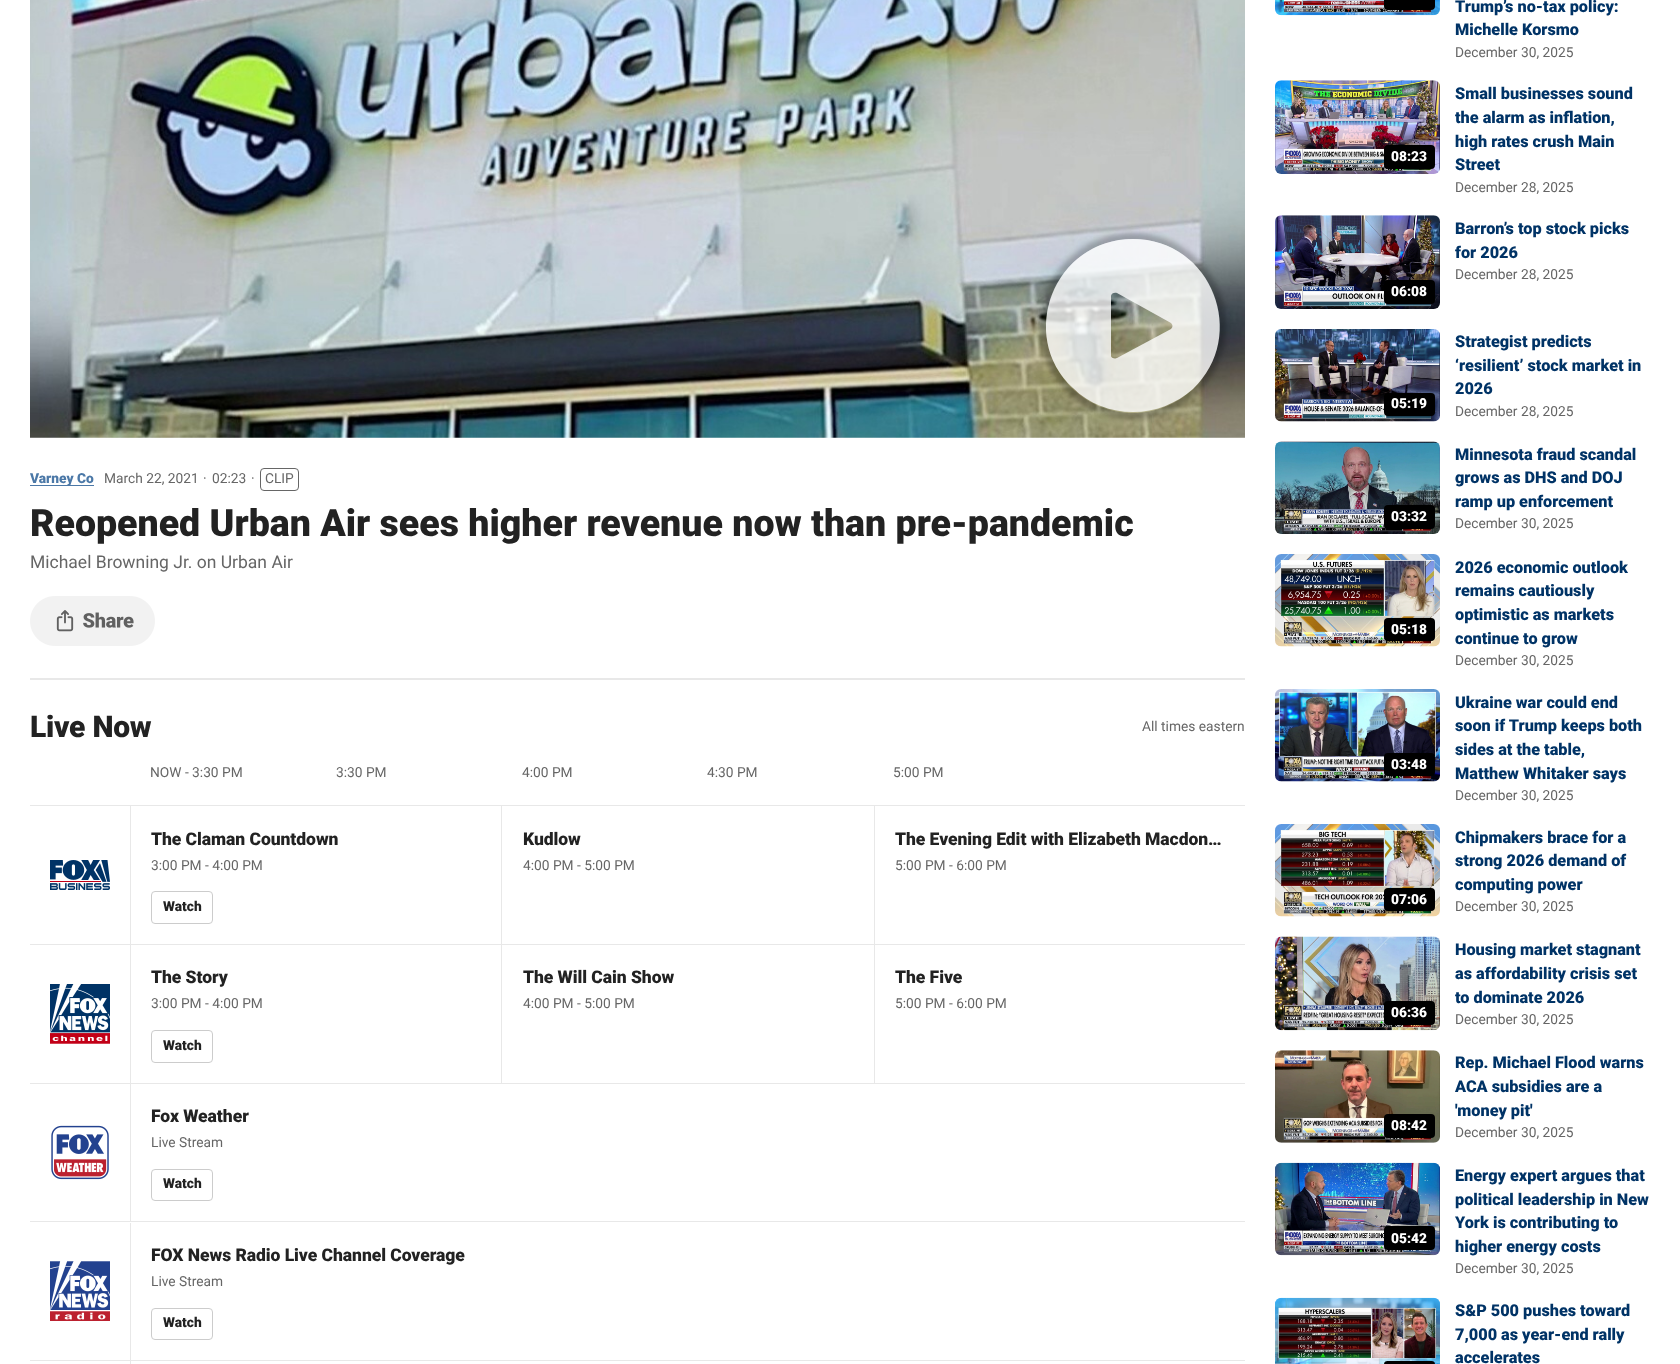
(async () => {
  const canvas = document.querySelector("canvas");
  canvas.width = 1680;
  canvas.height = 1364;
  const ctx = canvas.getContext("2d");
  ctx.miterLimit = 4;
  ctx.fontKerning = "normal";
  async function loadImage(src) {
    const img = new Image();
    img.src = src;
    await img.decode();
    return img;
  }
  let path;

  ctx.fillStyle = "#ffffff";
  ctx.fillRect(0, 0, 1680, 1364);
  ctx.fillStyle = "#e8e8e8";
  ctx.fillRect(30, 678, 1215, 2);
  ctx.drawImage(await loadImage("img/1.png"), 30, 0, 1215, 438);
  ctx.save();
  path = new Path2D("M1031 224H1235V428H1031ZM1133 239C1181 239 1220 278 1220 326C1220 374 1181 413 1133 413C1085 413 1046 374 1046 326C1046 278 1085 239 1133 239Z");
  ctx.clip(path, "evenodd");
  ctx.fillStyle = "rgba(0, 0, 0, 0.24)";
  ctx.filter = "blur(2.5px)";
  ctx.beginPath();
  ctx.roundRect(1040, 233, 186, 186, 93);
  ctx.fill();
  ctx.filter = "none";
  ctx.restore();
  ctx.fillStyle = "rgba(255, 255, 255, 0.8)";
  path = new Path2D("M1133 239C1212 239 1249 336 1193 389C1176 404 1155 412 1133 412C1111 412 1089 404 1073 388C1017 336 1054 239 1133 239ZM1171 329C1173 327 1173 325 1171 323L1117 293C1115 292 1111 293 1111 296V356C1111 358 1115 359 1117 358Z");
  ctx.fill(path, "evenodd");
  ctx.fillStyle = "#4b78a7";
  ctx.fillRect(30, 485, 64, 1);
  ctx.beginPath();
  ctx.roundRect(260.5, 468.5, 38, 22, 3.5);
  ctx.strokeStyle = "#666666";
  ctx.stroke();
  ctx.drawImage(await loadImage("img/2.png"), 30, 596, 125, 50);
  ctx.fillStyle = "#e8e8e8";
  ctx.fillRect(30, 805, 1215, 1);
  ctx.fillRect(130, 806, 1, 138);
  ctx.beginPath();
  ctx.roundRect(151.5, 891.5, 61, 32, 3.5);
  ctx.strokeStyle = "#cccccc";
  ctx.stroke();
  ctx.fillRect(501, 806, 1, 138);
  ctx.fillRect(874, 806, 1, 138);
  ctx.drawImage(await loadImage("img/3.png"), 50, 860, 60, 30);
  ctx.fillRect(30, 944, 1215, 1);
  ctx.drawImage(await loadImage("img/4.png"), 50, 984, 60, 60);
  ctx.fillRect(130, 945, 1, 138);
  ctx.beginPath();
  ctx.roundRect(151.5, 1030.5, 61, 32, 3.5);
  ctx.stroke();
  for (const [x, y, w, h, color] of [
    [501, 945, 1, 138, "#e8e8e8"],
    [874, 945, 1, 138, "#e8e8e8"],
    [30, 1083, 1215, 1, "#e8e8e8"],
  ]) {
    ctx.fillStyle = color;
    ctx.fillRect(x, y, w, h);
  }
  ctx.drawImage(await loadImage("img/5.png"), 51, 1125, 58, 55);
  ctx.fillRect(130, 1084, 1, 137);
  ctx.beginPath();
  ctx.roundRect(151.5, 1169.5, 61, 31, 3.5);
  ctx.stroke();
  ctx.fillRect(30, 1221, 1215, 1);
  ctx.drawImage(await loadImage("img/6.png"), 50, 1261, 60, 60);
  ctx.fillRect(130, 1223, 1, 137);
  ctx.beginPath();
  ctx.roundRect(151.5, 1308.5, 61, 31, 3.5);
  ctx.stroke();
  ctx.fillRect(30, 1360, 1215, 1);
  ctx.fillRect(130, 1361, 1, 3);
  ctx.drawImage(await loadImage("img/7.png"), 1275, 0, 165, 16);
  ctx.fillStyle = "#000000";
  ctx.beginPath();
  ctx.roundRect(1384, -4, 51, 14, 4);
  ctx.fill();
  ctx.drawImage(await loadImage("img/8.png"), 1275, 80, 165, 94);
  ctx.beginPath();
  ctx.roundRect(1384, 145, 51, 24, 4);
  ctx.fill();
  ctx.drawImage(await loadImage("img/9.png"), 1275, 215, 165, 94);
  ctx.beginPath();
  ctx.roundRect(1384, 280, 51, 24, 4);
  ctx.fill();
  ctx.drawImage(await loadImage("img/10.png"), 1275, 329, 165, 93);
  ctx.beginPath();
  ctx.roundRect(1384, 393, 51, 23, 4);
  ctx.fill();
  ctx.drawImage(await loadImage("img/11.png"), 1275, 441, 165, 93);
  ctx.beginPath();
  ctx.roundRect(1384, 505, 51, 24, 4);
  ctx.fill();
  ctx.drawImage(await loadImage("img/12.png"), 1275, 554, 165, 93);
  ctx.beginPath();
  ctx.roundRect(1384, 618, 51, 23, 4);
  ctx.fill();
  ctx.drawImage(await loadImage("img/13.png"), 1275, 689, 165, 93);
  ctx.beginPath();
  ctx.roundRect(1384, 753, 51, 23, 4);
  ctx.fill();
  ctx.drawImage(await loadImage("img/14.png"), 1275, 824, 165, 93);
  ctx.beginPath();
  ctx.roundRect(1384, 888, 51, 23, 4);
  ctx.fill();
  ctx.drawImage(await loadImage("img/15.png"), 1275, 936, 165, 95);
  ctx.beginPath();
  ctx.roundRect(1384, 1001, 51, 24, 4);
  ctx.fill();
  ctx.drawImage(await loadImage("img/16.png"), 1275, 1050, 165, 93);
  ctx.beginPath();
  ctx.roundRect(1384, 1114, 51, 24, 4);
  ctx.fill();
  ctx.drawImage(await loadImage("img/17.png"), 1275, 1162, 165, 94);
  ctx.beginPath();
  ctx.roundRect(1384, 1226, 51, 24, 4);
  ctx.fill();
  ctx.drawImage(await loadImage("img/18.png"), 1275, 1297, 165, 67);
  ctx.beginPath();
  ctx.roundRect(1384, 1361, 51, 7, 4);
  ctx.fill();
  ctx.font = "900 13.75px Roboto";
  ctx.fillStyle = "#4b78a7";
  ctx.fillText("Varney Co", 30, 483);
  ctx.font = "13.75px Roboto";
  ctx.fillStyle = "#666666";
  for (const [text, x, y] of [
    ["March 22, 2021", 104, 483],
    ["·", 203, 483],
    ["02:23", 212, 483],
    ["·", 251, 483],
    ["CLIP", 265, 483],
  ]) {
    ctx.fillText(text, x, y);
  }
  ctx.font = "900 37.5px Roboto";
  ctx.fillStyle = "#222222";
  ctx.fillText("Reopened Urban Air sees higher revenue now than pre-pandemic", 30, 536);
  ctx.font = "17.5px Roboto";
  ctx.fillStyle = "#666666";
  ctx.fillText("Michael Browning Jr. on Urban Air", 30, 568);
  ctx.letterSpacing = "-0.25px";
  ctx.font = "900 30px Roboto";
  ctx.fillStyle = "#222222";
  ctx.fillText("Live Now", 30, 737);
  ctx.letterSpacing = "0px";
  ctx.font = "13.75px Roboto";
  ctx.fillStyle = "#666666";
  for (const [text, x, y] of [
    ["All times eastern", 1142, 731],
    ["NOW - 3:30 PM", 150, 777],
    ["3:30 PM", 336, 777],
    ["4:00 PM", 522, 777],
    ["4:30 PM", 707, 777],
    ["5:00 PM", 893, 777],
  ]) {
    ctx.fillText(text, x, y);
  }
  ctx.letterSpacing = "-0.05px";
  ctx.font = "900 17.5px Roboto";
  ctx.fillStyle = "#222222";
  ctx.fillText("The Claman Countdown", 151, 845);
  ctx.letterSpacing = "0px";
  ctx.font = "13.75px Roboto";
  ctx.fillStyle = "#666666";
  ctx.fillText("3:00 PM - 4:00 PM", 151, 870);
  ctx.font = "900 13.75px Roboto";
  ctx.fillStyle = "#222222";
  ctx.fillText("Watch", 163, 911);
  ctx.letterSpacing = "-0.05px";
  ctx.font = "900 17.5px Roboto";
  ctx.fillText("Kudlow", 523, 845);
  ctx.letterSpacing = "0px";
  ctx.font = "13.75px Roboto";
  ctx.fillStyle = "#666666";
  ctx.fillText("4:00 PM - 5:00 PM", 523, 870);
  ctx.letterSpacing = "-0.05px";
  ctx.font = "900 17.5px Roboto";
  ctx.fillStyle = "#222222";
  ctx.fillText("The Evening Edit with Elizabeth Macdon…", 895, 845);
  ctx.letterSpacing = "0px";
  ctx.font = "13.75px Roboto";
  ctx.fillStyle = "#666666";
  ctx.fillText("5:00 PM - 6:00 PM", 895, 870);
  ctx.letterSpacing = "-0.05px";
  ctx.font = "900 17.5px Roboto";
  ctx.fillStyle = "#222222";
  ctx.fillText("The Story", 151, 983);
  ctx.letterSpacing = "0px";
  ctx.font = "13.75px Roboto";
  ctx.fillStyle = "#666666";
  ctx.fillText("3:00 PM - 4:00 PM", 151, 1008);
  ctx.font = "900 13.75px Roboto";
  ctx.fillStyle = "#222222";
  ctx.fillText("Watch", 163, 1050);
  ctx.letterSpacing = "-0.05px";
  ctx.font = "900 17.5px Roboto";
  ctx.fillText("The Will Cain Show", 523, 983);
  ctx.letterSpacing = "0px";
  ctx.font = "13.75px Roboto";
  ctx.fillStyle = "#666666";
  ctx.fillText("4:00 PM - 5:00 PM", 523, 1008);
  ctx.letterSpacing = "-0.05px";
  ctx.font = "900 17.5px Roboto";
  ctx.fillStyle = "#222222";
  ctx.fillText("The Five", 895, 983);
  ctx.letterSpacing = "0px";
  ctx.font = "13.75px Roboto";
  ctx.fillStyle = "#666666";
  ctx.fillText("5:00 PM - 6:00 PM", 895, 1008);
  ctx.letterSpacing = "-0.05px";
  ctx.font = "900 17.5px Roboto";
  ctx.fillStyle = "#222222";
  ctx.fillText("Fox Weather", 151, 1122);
  ctx.letterSpacing = "0px";
  ctx.font = "13.75px Roboto";
  ctx.fillStyle = "#666666";
  ctx.fillText("Live Stream", 151, 1147);
  ctx.font = "900 13.75px Roboto";
  ctx.fillStyle = "#222222";
  ctx.fillText("Watch", 163, 1188);
  ctx.letterSpacing = "-0.05px";
  ctx.font = "900 17.5px Roboto";
  ctx.fillText("FOX News Radio Live Channel Coverage", 151, 1261);
  ctx.letterSpacing = "0px";
  ctx.font = "13.75px Roboto";
  ctx.fillStyle = "#666666";
  ctx.fillText("Live Stream", 151, 1286);
  ctx.font = "900 13.75px Roboto";
  ctx.fillStyle = "#222222";
  ctx.fillText("Watch", 163, 1327);
  ctx.font = "900 16.25px Roboto";
  ctx.fillStyle = "#003366";
  ctx.fillText("Trump’s no-tax policy:", 1455, 12);
  ctx.fillText("Michelle Korsmo", 1455, 35);
  ctx.font = "13.75px Roboto";
  ctx.fillStyle = "#666666";
  ctx.fillText("December 30, 2025", 1455, 57);
  ctx.font = "900 13.75px Roboto";
  ctx.fillStyle = "#ffffff";
  ctx.fillText("08:23", 1391, 161);
  ctx.font = "900 16.25px Roboto";
  ctx.fillStyle = "#003366";
  for (const [text, x, y] of [
    ["Small businesses sound", 1455, 99],
    ["the alarm as inflation,", 1455, 123],
    ["high rates crush Main", 1455, 147],
    ["Street", 1455, 170],
  ]) {
    ctx.fillText(text, x, y);
  }
  ctx.font = "13.75px Roboto";
  ctx.fillStyle = "#666666";
  ctx.fillText("December 28, 2025", 1455, 192);
  ctx.font = "900 16.25px Roboto";
  ctx.fillStyle = "#003366";
  ctx.fillText("Barron’s top stock picks", 1455, 234);
  ctx.fillText("for 2026", 1455, 258);
  ctx.font = "13.75px Roboto";
  ctx.fillStyle = "#666666";
  ctx.fillText("December 28, 2025", 1455, 279);
  ctx.font = "900 13.75px Roboto";
  ctx.fillStyle = "#ffffff";
  ctx.fillText("06:08", 1391, 296);
  ctx.fillText("05:19", 1391, 408);
  ctx.font = "900 16.25px Roboto";
  ctx.fillStyle = "#003366";
  for (const [text, x, y] of [
    ["Strategist predicts", 1455, 347],
    ["‘resilient’ stock market in", 1455, 371],
    ["2026", 1455, 394],
  ]) {
    ctx.fillText(text, x, y);
  }
  ctx.font = "13.75px Roboto";
  ctx.fillStyle = "#666666";
  ctx.fillText("December 28, 2025", 1455, 416);
  ctx.font = "900 13.75px Roboto";
  ctx.fillStyle = "#ffffff";
  ctx.fillText("03:32", 1391, 521);
  ctx.font = "900 16.25px Roboto";
  ctx.fillStyle = "#003366";
  for (const [text, x, y] of [
    ["Minnesota fraud scandal", 1455, 460],
    ["grows as DHS and DOJ", 1455, 483],
    ["ramp up enforcement", 1455, 507],
  ]) {
    ctx.fillText(text, x, y);
  }
  ctx.font = "13.75px Roboto";
  ctx.fillStyle = "#666666";
  ctx.fillText("December 30, 2025", 1455, 528);
  ctx.font = "900 13.75px Roboto";
  ctx.fillStyle = "#ffffff";
  ctx.fillText("05:18", 1391, 634);
  ctx.font = "900 16.25px Roboto";
  ctx.fillStyle = "#003366";
  for (const [text, x, y] of [
    ["2026 economic outlook", 1455, 573],
    ["remains cautiously", 1455, 596],
    ["optimistic as markets", 1455, 620],
    ["continue to grow", 1455, 644],
  ]) {
    ctx.fillText(text, x, y);
  }
  ctx.font = "13.75px Roboto";
  ctx.fillStyle = "#666666";
  ctx.fillText("December 30, 2025", 1455, 665);
  ctx.font = "900 13.75px Roboto";
  ctx.fillStyle = "#ffffff";
  ctx.fillText("03:48", 1391, 769);
  ctx.font = "900 16.25px Roboto";
  ctx.fillStyle = "#003366";
  for (const [text, x, y] of [
    ["Ukraine war could end", 1455, 708],
    ["soon if Trump keeps both", 1455, 731],
    ["sides at the table,", 1455, 755],
    ["Matthew Whitaker says", 1455, 779],
  ]) {
    ctx.fillText(text, x, y);
  }
  ctx.font = "13.75px Roboto";
  ctx.fillStyle = "#666666";
  ctx.fillText("December 30, 2025", 1455, 800);
  ctx.font = "900 13.75px Roboto";
  ctx.fillStyle = "#ffffff";
  ctx.fillText("07:06", 1391, 904);
  ctx.font = "900 16.25px Roboto";
  ctx.fillStyle = "#003366";
  for (const [text, x, y] of [
    ["Chipmakers brace for a", 1455, 843],
    ["strong 2026 demand of", 1455, 866],
    ["computing power", 1455, 890],
  ]) {
    ctx.fillText(text, x, y);
  }
  ctx.font = "13.75px Roboto";
  ctx.fillStyle = "#666666";
  ctx.fillText("December 30, 2025", 1455, 911);
  ctx.font = "900 13.75px Roboto";
  ctx.fillStyle = "#ffffff";
  ctx.fillText("06:36", 1391, 1017);
  ctx.font = "900 16.25px Roboto";
  ctx.fillStyle = "#003366";
  for (const [text, x, y] of [
    ["Housing market stagnant", 1455, 955],
    ["as affordability crisis set", 1455, 979],
    ["to dominate 2026", 1455, 1003],
  ]) {
    ctx.fillText(text, x, y);
  }
  ctx.font = "13.75px Roboto";
  ctx.fillStyle = "#666666";
  ctx.fillText("December 30, 2025", 1455, 1024);
  ctx.font = "900 13.75px Roboto";
  ctx.fillStyle = "#ffffff";
  ctx.fillText("08:42", 1391, 1130);
  ctx.font = "900 16.25px Roboto";
  ctx.fillStyle = "#003366";
  for (const [text, x, y] of [
    ["Rep. Michael Flood warns", 1455, 1068],
    ["ACA subsidies are a", 1455, 1092],
    ["'money pit'", 1455, 1116],
  ]) {
    ctx.fillText(text, x, y);
  }
  ctx.font = "13.75px Roboto";
  ctx.fillStyle = "#666666";
  ctx.fillText("December 30, 2025", 1455, 1137);
  ctx.font = "900 13.75px Roboto";
  ctx.fillStyle = "#ffffff";
  ctx.fillText("05:42", 1391, 1243);
  ctx.font = "900 16.25px Roboto";
  ctx.fillStyle = "#003366";
  for (const [text, x, y] of [
    ["Energy expert argues that", 1455, 1181],
    ["political leadership in New", 1455, 1205],
    ["York is contributing to", 1455, 1228],
    ["higher energy costs", 1455, 1252],
  ]) {
    ctx.fillText(text, x, y);
  }
  ctx.font = "13.75px Roboto";
  ctx.fillStyle = "#666666";
  ctx.fillText("December 30, 2025", 1455, 1273);
  ctx.font = "900 16.25px Roboto";
  ctx.fillStyle = "#003366";
  for (const [text, x, y] of [
    ["S&P 500 pushes toward", 1455, 1316],
    ["7,000 as year-end rally", 1455, 1340],
    ["accelerates", 1455, 1363],
  ]) {
    ctx.fillText(text, x, y);
  }
})();
